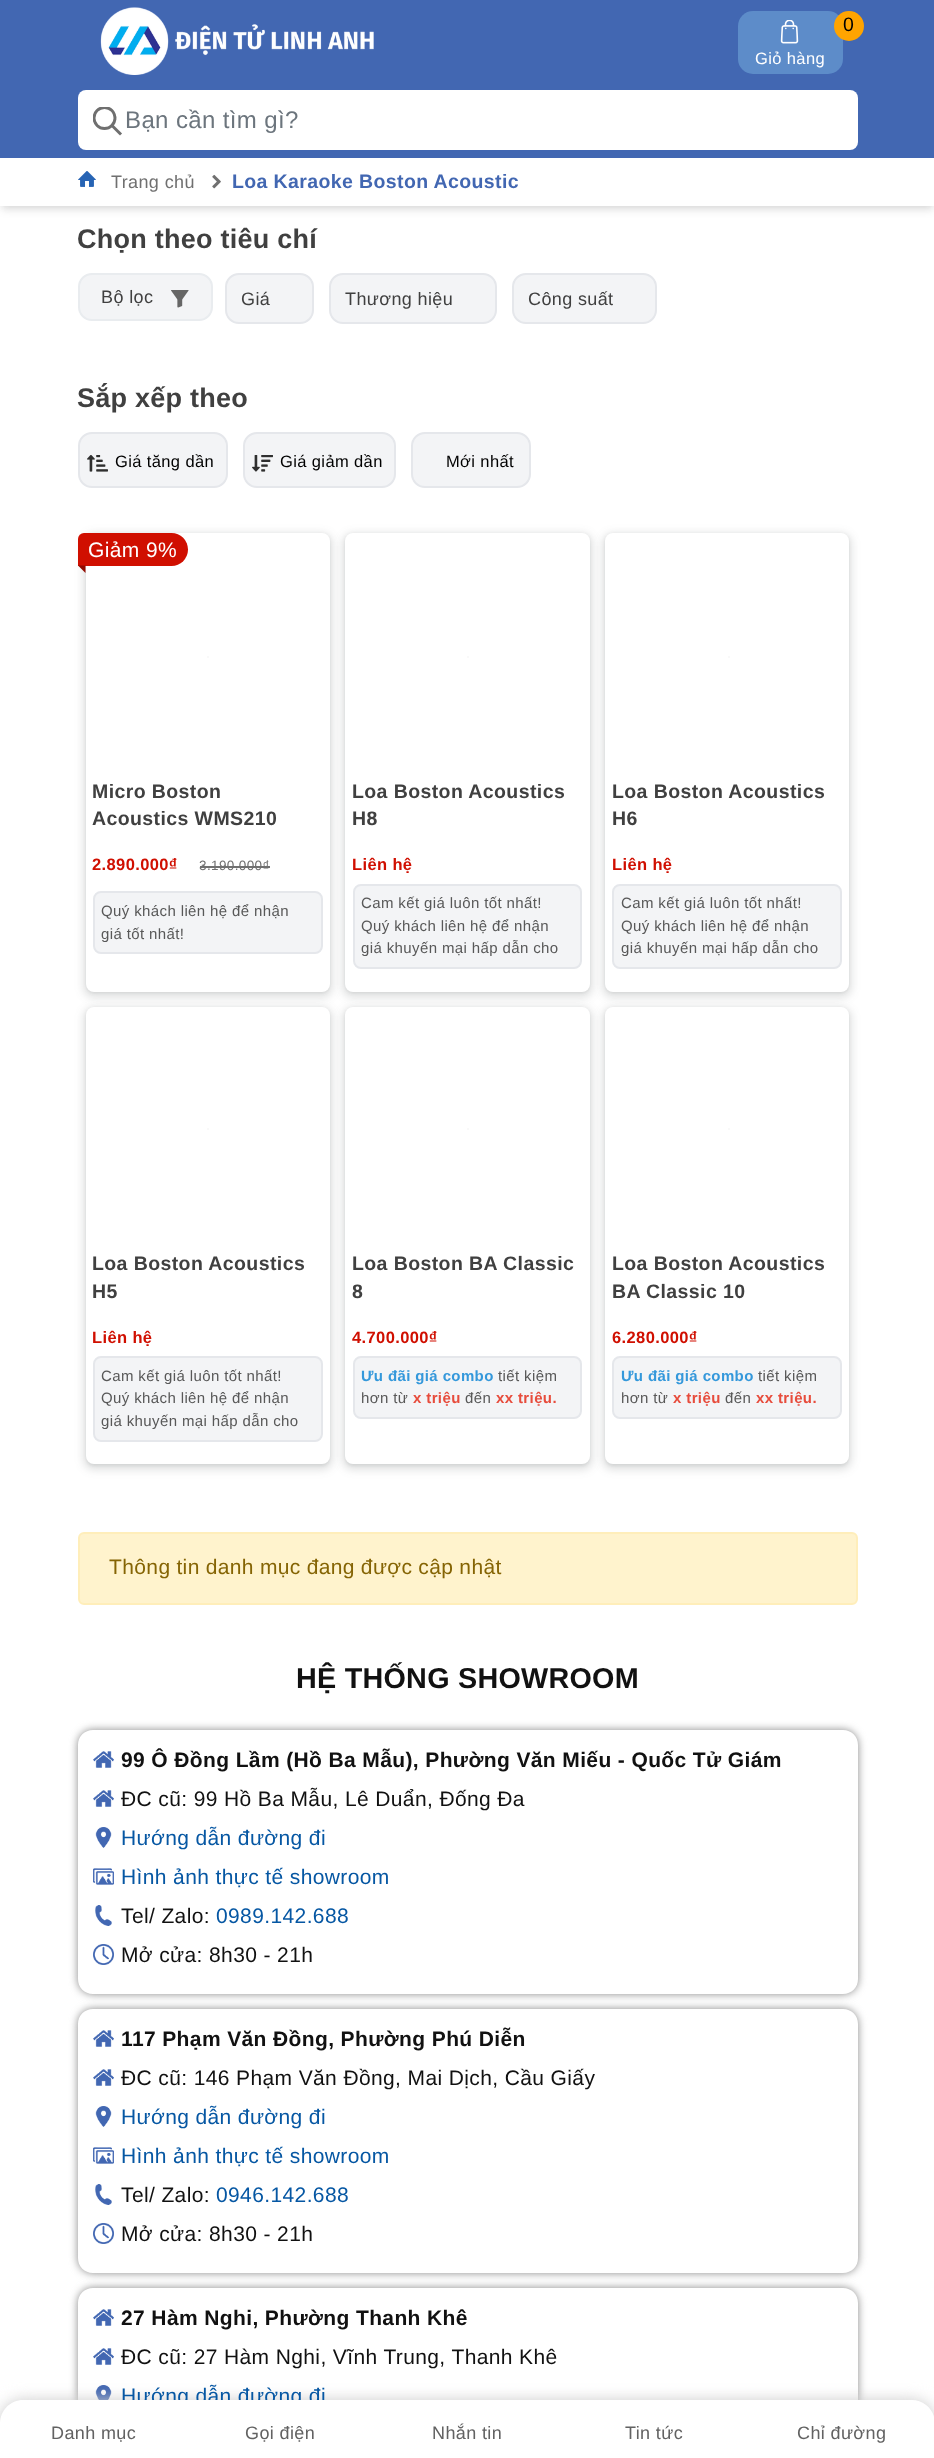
(async () => {
  const canvas = document.querySelector("canvas");
  canvas.width = 934;
  canvas.height = 2458;
  const ctx = canvas.getContext("2d");
  ctx.miterLimit = 4;
  ctx.fontKerning = "normal";
  async function loadImage(src) {
    const img = new Image();
    img.src = src;
    await img.decode();
    return img;
  }
  let path;

  ctx.fillStyle = "#ffffff";
  ctx.fillRect(0, 0, 934, 2458);
  ctx.fillStyle = "rgba(0, 0, 0, 0.06)";
  ctx.filter = "blur(3px)";
  ctx.beginPath();
  ctx.rect(2, 162, 931, 45);
  ctx.fill();
  ctx.filter = "none";
  ctx.fillStyle = "rgba(0, 0, 0, 0.1)";
  ctx.filter = "blur(4.5px)";
  ctx.beginPath();
  ctx.rect(2, 165, 931, 45);
  ctx.fill();
  ctx.filter = "none";
  ctx.fillStyle = "#4267b2";
  ctx.fillRect(0, 0, 934, 158);
  ctx.drawImage(await loadImage("img/1.png"), 100, 7, 274, 68);
  ctx.fillStyle = "#5d8cc9";
  ctx.beginPath();
  ctx.roundRect(738, 11, 105, 63, 15);
  ctx.fill();
  ctx.drawImage(await loadImage("img/2.png"), 780, 20, 19, 24);
  ctx.fillStyle = "#ffa400";
  ctx.beginPath();
  ctx.arc(849, 26, 15, 0, Math.PI * 2);
  ctx.fill();
  ctx.fillStyle = "#ffffff";
  ctx.beginPath();
  ctx.roundRect(78, 90, 780, 60, 8);
  ctx.fill();
  path = new Path2D("M120 133.5L112 125.5");
  ctx.strokeStyle = "#6f6f6f";
  ctx.lineWidth = 2.9;
  ctx.lineCap = "square";
  ctx.stroke(path);
  ctx.save();
  ctx.beginPath();
  ctx.rect(93, 107, 30, 30);
  ctx.clip();
  ctx.beginPath();
  ctx.arc(104.5, 118, 10.5, 0, Math.PI * 2);
  ctx.stroke();
  ctx.restore();
  ctx.fillRect(0, 158, 934, 48);
  ctx.drawImage(await loadImage("img/3.png"), 78, 171, 18, 16);
  ctx.drawImage(await loadImage("img/4.png"), 212, 174, 9, 15);
  ctx.fillStyle = "#f3f4f6";
  ctx.beginPath();
  ctx.roundRect(79, 274, 133, 46, 13);
  ctx.fill();
  ctx.strokeStyle = "#e9ecef";
  ctx.lineWidth = 2;
  ctx.stroke();
  ctx.drawImage(await loadImage("img/5.png"), 171, 290, 18, 18);
  ctx.beginPath();
  ctx.roundRect(226, 274, 87, 49, 13);
  ctx.fill();
  ctx.strokeStyle = "#e5e7eb";
  ctx.stroke();
  ctx.beginPath();
  ctx.roundRect(330, 274, 166, 49, 13);
  ctx.fill();
  ctx.stroke();
  ctx.beginPath();
  ctx.roundRect(513, 274, 143, 49, 13);
  ctx.fill();
  ctx.stroke();
  ctx.beginPath();
  ctx.roundRect(79, 433, 148, 54, 13);
  ctx.fill();
  ctx.stroke();
  ctx.drawImage(await loadImage("img/6.png"), 87, 455, 21, 17);
  ctx.beginPath();
  ctx.roundRect(244, 433, 151, 54, 13);
  ctx.fill();
  ctx.stroke();
  ctx.drawImage(await loadImage("img/7.png"), 252, 455, 21, 17);
  ctx.beginPath();
  ctx.roundRect(412, 433, 118, 54, 13);
  ctx.fill();
  ctx.stroke();
  ctx.fillStyle = "rgba(60, 64, 67, 0.15)";
  ctx.filter = "blur(4.5px)";
  ctx.beginPath();
  ctx.roundRect(83, 533, 250, 465, 11);
  ctx.fill();
  ctx.filter = "none";
  ctx.fillStyle = "rgba(60, 64, 67, 0.1)";
  ctx.filter = "blur(1.5px)";
  ctx.beginPath();
  ctx.roundRect(86, 534, 244, 459, 8);
  ctx.fill();
  ctx.filter = "none";
  ctx.fillStyle = "#ffffff";
  ctx.beginPath();
  ctx.roundRect(86, 533, 244, 459, 8);
  ctx.fill();
  ctx.fillStyle = "#d00f00";
  ctx.beginPath();
  ctx.roundRect(78, 533, 110, 33, [6, 16.5, 16.5, 0]);
  ctx.fill();
  ctx.fillStyle = "#920b00";
  path = new Path2D("M85.5 565.5V573L78 565.5Z");
  ctx.fill(path);
  ctx.fillStyle = "#f9f9f9";
  ctx.fillRect(207, 656, 2, 2);
  ctx.fillStyle = "#707070";
  ctx.fillRect(200, 866, 70, 2);
  ctx.fillStyle = "#f3f4f6";
  ctx.beginPath();
  ctx.roundRect(94, 892, 228, 61, 7);
  ctx.fill();
  ctx.stroke();
  ctx.fillStyle = "rgba(60, 64, 67, 0.15)";
  ctx.filter = "blur(4.5px)";
  ctx.beginPath();
  ctx.roundRect(342, 533, 251, 465, 11);
  ctx.fill();
  ctx.filter = "none";
  ctx.fillStyle = "rgba(60, 64, 67, 0.1)";
  ctx.filter = "blur(1.5px)";
  ctx.beginPath();
  ctx.roundRect(345, 534, 245, 459, 8);
  ctx.fill();
  ctx.filter = "none";
  ctx.fillStyle = "#ffffff";
  ctx.beginPath();
  ctx.roundRect(345, 533, 245, 459, 8);
  ctx.fill();
  ctx.fillStyle = "#f9f9f9";
  ctx.fillRect(467, 656, 2, 2);
  ctx.fillStyle = "#f3f4f6";
  ctx.beginPath();
  ctx.roundRect(354, 885, 227, 83, 7);
  ctx.fill();
  ctx.stroke();
  ctx.fillStyle = "rgba(60, 64, 67, 0.15)";
  ctx.filter = "blur(4.5px)";
  ctx.beginPath();
  ctx.roundRect(602, 533, 250, 465, 11);
  ctx.fill();
  ctx.filter = "none";
  ctx.fillStyle = "rgba(60, 64, 67, 0.1)";
  ctx.filter = "blur(1.5px)";
  ctx.beginPath();
  ctx.roundRect(605, 534, 244, 459, 8);
  ctx.fill();
  ctx.filter = "none";
  ctx.fillStyle = "#ffffff";
  ctx.beginPath();
  ctx.roundRect(605, 533, 244, 459, 8);
  ctx.fill();
  ctx.fillStyle = "#f9f9f9";
  ctx.fillRect(728, 656, 2, 2);
  ctx.fillStyle = "#f3f4f6";
  ctx.beginPath();
  ctx.roundRect(613, 885, 228, 83, 7);
  ctx.fill();
  ctx.stroke();
  ctx.fillStyle = "rgba(60, 64, 67, 0.15)";
  ctx.filter = "blur(4.5px)";
  ctx.beginPath();
  ctx.roundRect(83, 1007, 250, 463, 11);
  ctx.fill();
  ctx.filter = "none";
  ctx.fillStyle = "rgba(60, 64, 67, 0.1)";
  ctx.filter = "blur(1.5px)";
  ctx.beginPath();
  ctx.roundRect(86, 1008, 244, 458, 8);
  ctx.fill();
  ctx.filter = "none";
  ctx.fillStyle = "#ffffff";
  ctx.beginPath();
  ctx.roundRect(86, 1007, 244, 457, 8);
  ctx.fill();
  ctx.fillStyle = "#f9f9f9";
  ctx.fillRect(207, 1128, 2, 2);
  ctx.fillStyle = "#f3f4f6";
  ctx.beginPath();
  ctx.roundRect(94, 1357, 228, 84, 7);
  ctx.fill();
  ctx.stroke();
  ctx.fillStyle = "rgba(60, 64, 67, 0.15)";
  ctx.filter = "blur(4.5px)";
  ctx.beginPath();
  ctx.roundRect(342, 1007, 251, 463, 11);
  ctx.fill();
  ctx.filter = "none";
  ctx.fillStyle = "rgba(60, 64, 67, 0.1)";
  ctx.filter = "blur(1.5px)";
  ctx.beginPath();
  ctx.roundRect(345, 1008, 245, 458, 8);
  ctx.fill();
  ctx.filter = "none";
  ctx.fillStyle = "#ffffff";
  ctx.beginPath();
  ctx.roundRect(345, 1007, 245, 457, 8);
  ctx.fill();
  ctx.fillStyle = "#f9f9f9";
  ctx.fillRect(467, 1128, 2, 2);
  ctx.fillStyle = "#f3f4f6";
  ctx.beginPath();
  ctx.roundRect(354, 1357, 227, 61, 7);
  ctx.fill();
  ctx.stroke();
  ctx.fillStyle = "rgba(60, 64, 67, 0.15)";
  ctx.filter = "blur(4.5px)";
  ctx.beginPath();
  ctx.roundRect(602, 1007, 250, 463, 11);
  ctx.fill();
  ctx.filter = "none";
  ctx.fillStyle = "rgba(60, 64, 67, 0.1)";
  ctx.filter = "blur(1.5px)";
  ctx.beginPath();
  ctx.roundRect(605, 1008, 244, 458, 8);
  ctx.fill();
  ctx.filter = "none";
  ctx.fillStyle = "#ffffff";
  ctx.beginPath();
  ctx.roundRect(605, 1007, 244, 457, 8);
  ctx.fill();
  ctx.fillStyle = "#f9f9f9";
  ctx.fillRect(728, 1128, 2, 2);
  ctx.fillStyle = "#f3f4f6";
  ctx.beginPath();
  ctx.roundRect(613, 1357, 228, 61, 7);
  ctx.fill();
  ctx.stroke();
  ctx.fillStyle = "#fff3cd";
  ctx.beginPath();
  ctx.roundRect(79, 1533, 778, 71, 5);
  ctx.fill();
  ctx.strokeStyle = "#ffeeba";
  ctx.stroke();
  ctx.save();
  path = new Path2D("M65 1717H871V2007H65ZM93 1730H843C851.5 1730 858 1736.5 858 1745V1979C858 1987.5 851.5 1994 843 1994H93C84.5 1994 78 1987.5 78 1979V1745C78 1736.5 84.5 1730 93 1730Z");
  ctx.clip(path, "evenodd");
  ctx.fillStyle = "#888888";
  ctx.filter = "blur(4px)";
  ctx.beginPath();
  ctx.roundRect(78, 1730, 780, 264, 15);
  ctx.fill();
  ctx.filter = "none";
  ctx.restore();
  ctx.drawImage(await loadImage("img/8.png"), 93, 1751, 21, 17);
  ctx.drawImage(await loadImage("img/8.png"), 93, 1790, 21, 17);
  ctx.drawImage(await loadImage("img/9.png"), 95, 1827, 17, 21);
  ctx.drawImage(await loadImage("img/10.png"), 93, 1868, 21, 17);
  ctx.drawImage(await loadImage("img/11.png"), 95, 1905, 17, 21);
  ctx.drawImage(await loadImage("img/12.png"), 93, 1944, 21, 21);
  ctx.save();
  path = new Path2D("M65 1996H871V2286H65ZM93 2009H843C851.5 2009 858 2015.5 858 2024V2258C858 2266.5 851.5 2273 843 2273H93C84.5 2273 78 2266.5 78 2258V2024C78 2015.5 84.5 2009 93 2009Z");
  ctx.clip(path, "evenodd");
  ctx.fillStyle = "#888888";
  ctx.filter = "blur(4px)";
  ctx.beginPath();
  ctx.roundRect(78, 2009, 780, 264, 15);
  ctx.fill();
  ctx.filter = "none";
  ctx.restore();
  ctx.drawImage(await loadImage("img/8.png"), 93, 2030, 21, 17);
  ctx.drawImage(await loadImage("img/8.png"), 93, 2069, 21, 17);
  ctx.drawImage(await loadImage("img/9.png"), 95, 2106, 17, 21);
  ctx.drawImage(await loadImage("img/10.png"), 93, 2147, 21, 17);
  ctx.drawImage(await loadImage("img/11.png"), 95, 2184, 17, 21);
  ctx.drawImage(await loadImage("img/12.png"), 93, 2223, 21, 21);
  ctx.save();
  path = new Path2D("M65 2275H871V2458H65ZM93 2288H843C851.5 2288 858 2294.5 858 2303V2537C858 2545.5 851.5 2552 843 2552H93C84.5 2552 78 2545.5 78 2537V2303C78 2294.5 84.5 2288 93 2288Z");
  ctx.clip(path, "evenodd");
  ctx.fillStyle = "#888888";
  ctx.filter = "blur(4px)";
  ctx.beginPath();
  ctx.roundRect(78, 2288, 780, 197, 15);
  ctx.fill();
  ctx.filter = "none";
  ctx.restore();
  ctx.drawImage(await loadImage("img/8.png"), 93, 2309, 21, 17);
  ctx.drawImage(await loadImage("img/8.png"), 93, 2348, 21, 17);
  ctx.drawImage(await loadImage("img/13.png"), 95, 2385, 17, 15);
  ctx.fillStyle = "#cccccc";
  ctx.filter = "blur(7.5px)";
  ctx.beginPath();
  ctx.roundRect(0, 2400, 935, 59, 23);
  ctx.fill();
  ctx.filter = "none";
  ctx.letterSpacing = "0.38px";
  ctx.font = "19.5px Liberation Sans";
  ctx.fillStyle = "#000000";
  ctx.fillText("0", 843, 31);
  ctx.font = "16.5px Liberation Sans";
  ctx.fillStyle = "#ffffff";
  ctx.fillText("Giỏ hàng", 755, 64);
  ctx.font = "24px Liberation Sans";
  ctx.fillStyle = "#6c757d";
  ctx.fillText("Bạn cần tìm gì?", 125, 128);
  ctx.font = "18px Liberation Sans";
  ctx.fillStyle = "#707070";
  ctx.fillText("Trang chủ", 111, 188);
  ctx.font = "bold 19.5px Liberation Sans";
  ctx.fillStyle = "#4267b2";
  ctx.fillText("Loa Karaoke Boston Acoustic", 232, 188);
  ctx.letterSpacing = "0.25px";
  ctx.font = "bold 27px Liberation Sans";
  ctx.fillStyle = "#404040";
  ctx.fillText("Chọn theo tiêu chí", 77, 248);
  ctx.letterSpacing = "0.38px";
  ctx.font = "18px Liberation Sans";
  for (const [text, x, y] of [
    ["Bộ lọc", 101, 303],
    ["Giá", 241, 305],
    ["Thương hiệu", 345, 305],
    ["Công suất", 528, 305],
  ]) {
    ctx.fillText(text, x, y);
  }
  ctx.letterSpacing = "0.25px";
  ctx.font = "bold 27px Liberation Sans";
  ctx.fillText("Sắp xếp theo", 77, 407);
  ctx.letterSpacing = "0.38px";
  ctx.font = "16.5px Liberation Sans";
  ctx.fillStyle = "#000000";
  for (const [text, x, y] of [
    ["Giá tăng dần", 115, 467],
    ["Giá giảm dần", 280, 467],
    ["Mới nhất", 446, 467],
  ]) {
    ctx.fillText(text, x, y);
  }
  ctx.font = "21px Liberation Sans";
  ctx.fillStyle = "#ffffff";
  ctx.fillText("Giảm 9%", 88, 557);
  ctx.letterSpacing = "0.4px";
  ctx.font = "bold 19.5px Liberation Sans";
  ctx.fillStyle = "#404040";
  ctx.fillText("Micro Boston", 92, 798);
  ctx.fillText("Acoustics WMS210", 92, 825);
  ctx.letterSpacing = "0.38px";
  ctx.font = "bold 16.5px Liberation Sans";
  ctx.fillStyle = "#d00f00";
  ctx.fillText("2.890.000₫", 92, 870);
  ctx.font = "13.5px Liberation Sans";
  ctx.fillStyle = "#707070";
  ctx.fillText("3.190.000₫", 199, 870);
  ctx.font = "15px Liberation Sans";
  ctx.fillStyle = "#585858";
  ctx.fillText("Quý khách liên hệ để nhận", 101, 916);
  ctx.fillText("giá tốt nhất!", 101, 939);
  ctx.letterSpacing = "0.4px";
  ctx.font = "bold 19.5px Liberation Sans";
  ctx.fillStyle = "#404040";
  ctx.fillText("Loa Boston Acoustics", 352, 798);
  ctx.fillText("H8", 352, 825);
  ctx.letterSpacing = "0.38px";
  ctx.font = "bold 16.5px Liberation Sans";
  ctx.fillStyle = "#d00f00";
  ctx.fillText("Liên hệ", 352, 870);
  ctx.font = "15px Liberation Sans";
  ctx.fillStyle = "#585858";
  for (const [text, x, y] of [
    ["Cam kết giá luôn tốt nhất!", 361, 908],
    ["Quý khách liên hệ để nhận", 361, 931],
    ["giá khuyến mại hấp dẫn cho", 361, 953],
  ]) {
    ctx.fillText(text, x, y);
  }
  ctx.letterSpacing = "0.4px";
  ctx.font = "bold 19.5px Liberation Sans";
  ctx.fillStyle = "#404040";
  ctx.fillText("Loa Boston Acoustics", 612, 798);
  ctx.fillText("H6", 612, 825);
  ctx.letterSpacing = "0.38px";
  ctx.font = "bold 16.5px Liberation Sans";
  ctx.fillStyle = "#d00f00";
  ctx.fillText("Liên hệ", 612, 870);
  ctx.font = "15px Liberation Sans";
  ctx.fillStyle = "#585858";
  for (const [text, x, y] of [
    ["Cam kết giá luôn tốt nhất!", 621, 908],
    ["Quý khách liên hệ để nhận", 621, 931],
    ["giá khuyến mại hấp dẫn cho", 621, 953],
  ]) {
    ctx.fillText(text, x, y);
  }
  ctx.letterSpacing = "0.4px";
  ctx.font = "bold 19.5px Liberation Sans";
  ctx.fillStyle = "#404040";
  ctx.fillText("Loa Boston Acoustics", 92, 1270);
  ctx.fillText("H5", 92, 1298);
  ctx.letterSpacing = "0.38px";
  ctx.font = "bold 16.5px Liberation Sans";
  ctx.fillStyle = "#d00f00";
  ctx.fillText("Liên hệ", 92, 1343);
  ctx.font = "15px Liberation Sans";
  ctx.fillStyle = "#585858";
  for (const [text, x, y] of [
    ["Cam kết giá luôn tốt nhất!", 101, 1381],
    ["Quý khách liên hệ để nhận", 101, 1403],
    ["giá khuyến mại hấp dẫn cho", 101, 1426],
  ]) {
    ctx.fillText(text, x, y);
  }
  ctx.letterSpacing = "0.4px";
  ctx.font = "bold 19.5px Liberation Sans";
  ctx.fillStyle = "#404040";
  ctx.fillText("Loa Boston BA Classic", 352, 1270);
  ctx.fillText("8", 352, 1298);
  ctx.letterSpacing = "0.38px";
  ctx.font = "bold 16.5px Liberation Sans";
  ctx.fillStyle = "#d00f00";
  ctx.fillText("4.700.000₫", 352, 1343);
  ctx.font = "bold 15px Liberation Sans";
  ctx.fillStyle = "#3498db";
  ctx.fillText("Ưu đãi giá combo", 361, 1381);
  ctx.font = "15px Liberation Sans";
  ctx.fillStyle = "#585858";
  ctx.fillText("tiết kiệm", 498, 1381);
  ctx.fillText("hơn từ", 361, 1403);
  ctx.font = "bold 15px Liberation Sans";
  ctx.fillStyle = "#e74c3c";
  ctx.fillText("x triệu", 413, 1403);
  ctx.font = "15px Liberation Sans";
  ctx.fillStyle = "#585858";
  ctx.fillText("đến", 465, 1403);
  ctx.font = "bold 15px Liberation Sans";
  ctx.fillStyle = "#e74c3c";
  ctx.fillText("xx triệu.", 496, 1403);
  ctx.letterSpacing = "0.4px";
  ctx.font = "bold 19.5px Liberation Sans";
  ctx.fillStyle = "#404040";
  ctx.fillText("Loa Boston Acoustics", 612, 1270);
  ctx.fillText("BA Classic 10", 612, 1298);
  ctx.letterSpacing = "0.38px";
  ctx.font = "bold 16.5px Liberation Sans";
  ctx.fillStyle = "#d00f00";
  ctx.fillText("6.280.000₫", 612, 1343);
  ctx.font = "bold 15px Liberation Sans";
  ctx.fillStyle = "#3498db";
  ctx.fillText("Ưu đãi giá combo", 621, 1381);
  ctx.font = "15px Liberation Sans";
  ctx.fillStyle = "#585858";
  ctx.fillText("tiết kiệm", 758, 1381);
  ctx.fillText("hơn từ", 621, 1403);
  ctx.font = "bold 15px Liberation Sans";
  ctx.fillStyle = "#e74c3c";
  ctx.fillText("x triệu", 673, 1403);
  ctx.font = "15px Liberation Sans";
  ctx.fillStyle = "#585858";
  ctx.fillText("đến", 725, 1403);
  ctx.font = "bold 15px Liberation Sans";
  ctx.fillStyle = "#e74c3c";
  ctx.fillText("xx triệu.", 756, 1403);
  ctx.wordSpacing = "-0.25px";
  ctx.font = "21px Liberation Sans";
  ctx.fillStyle = "#856404";
  ctx.fillText("Thông tin danh mục đang được cập nhật", 109, 1574);
  ctx.letterSpacing = "0.25px";
  ctx.wordSpacing = "0px";
  ctx.font = "bold 28.75px Liberation Sans";
  ctx.fillStyle = "#111111";
  ctx.fillText("HỆ THỐNG SHOWROOM", 296, 1688);
  ctx.letterSpacing = "0.38px";
  ctx.font = "bold 21px Liberation Sans";
  ctx.fillText("99 Ô Đồng Lầm (Hồ Ba Mẫu), Phường Văn Miếu - Quốc Tử Giám", 121, 1767);
  ctx.font = "21px Liberation Sans";
  ctx.fillText("ĐC cũ: 99 Hồ Ba Mẫu, Lê Duẩn, Đống Đa", 121, 1806);
  ctx.fillStyle = "#0657a3";
  ctx.fillText("Hướng dẫn đường đi", 121, 1845);
  ctx.fillText("Hình ảnh thực tế showroom", 121, 1884);
  ctx.fillStyle = "#111111";
  ctx.fillText("Tel/ Zalo:", 121, 1923);
  ctx.fillStyle = "#0657a3";
  ctx.fillText("0989.142.688", 216, 1923);
  ctx.fillStyle = "#111111";
  ctx.fillText("Mở cửa: 8h30 - 21h", 121, 1962);
  ctx.font = "bold 21px Liberation Sans";
  ctx.fillText("117 Phạm Văn Đồng, Phường Phú Diễn", 121, 2046);
  ctx.font = "21px Liberation Sans";
  ctx.fillText("ĐC cũ: 146 Phạm Văn Đồng, Mai Dịch, Cầu Giấy", 121, 2085);
  ctx.fillStyle = "#0657a3";
  ctx.fillText("Hướng dẫn đường đi", 121, 2124);
  ctx.fillText("Hình ảnh thực tế showroom", 121, 2163);
  ctx.fillStyle = "#111111";
  ctx.fillText("Tel/ Zalo:", 121, 2202);
  ctx.fillStyle = "#0657a3";
  ctx.fillText("0946.142.688", 216, 2202);
  ctx.fillStyle = "#111111";
  ctx.fillText("Mở cửa: 8h30 - 21h", 121, 2241);
  ctx.font = "bold 21px Liberation Sans";
  ctx.fillText("27 Hàm Nghi, Phường Thanh Khê", 121, 2325);
  ctx.font = "21px Liberation Sans";
  ctx.fillText("ĐC cũ: 27 Hàm Nghi, Vĩnh Trung, Thanh Khê", 121, 2364);
  ctx.fillStyle = "#0657a3";
  ctx.fillText("Hướng dẫn đường đi", 121, 2403);
  ctx.fillStyle = "#ffffff";
  path = new Path2D("M23 2400H912C924.5 2400 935 2410.5 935 2423V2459H0V2423C0 2410.5 10.5 2400 23 2400Z");
  ctx.fill(path);
  ctx.font = "18px Liberation Sans";
  ctx.fillStyle = "#626262";
  for (const [text, x, y] of [
    ["Danh mục", 51, 2439],
    ["Gọi điện", 245, 2439],
    ["Nhắn tin", 432, 2439],
    ["Tin tức", 625, 2439],
    ["Chỉ đường", 797, 2439],
  ]) {
    ctx.fillText(text, x, y);
  }
})();
